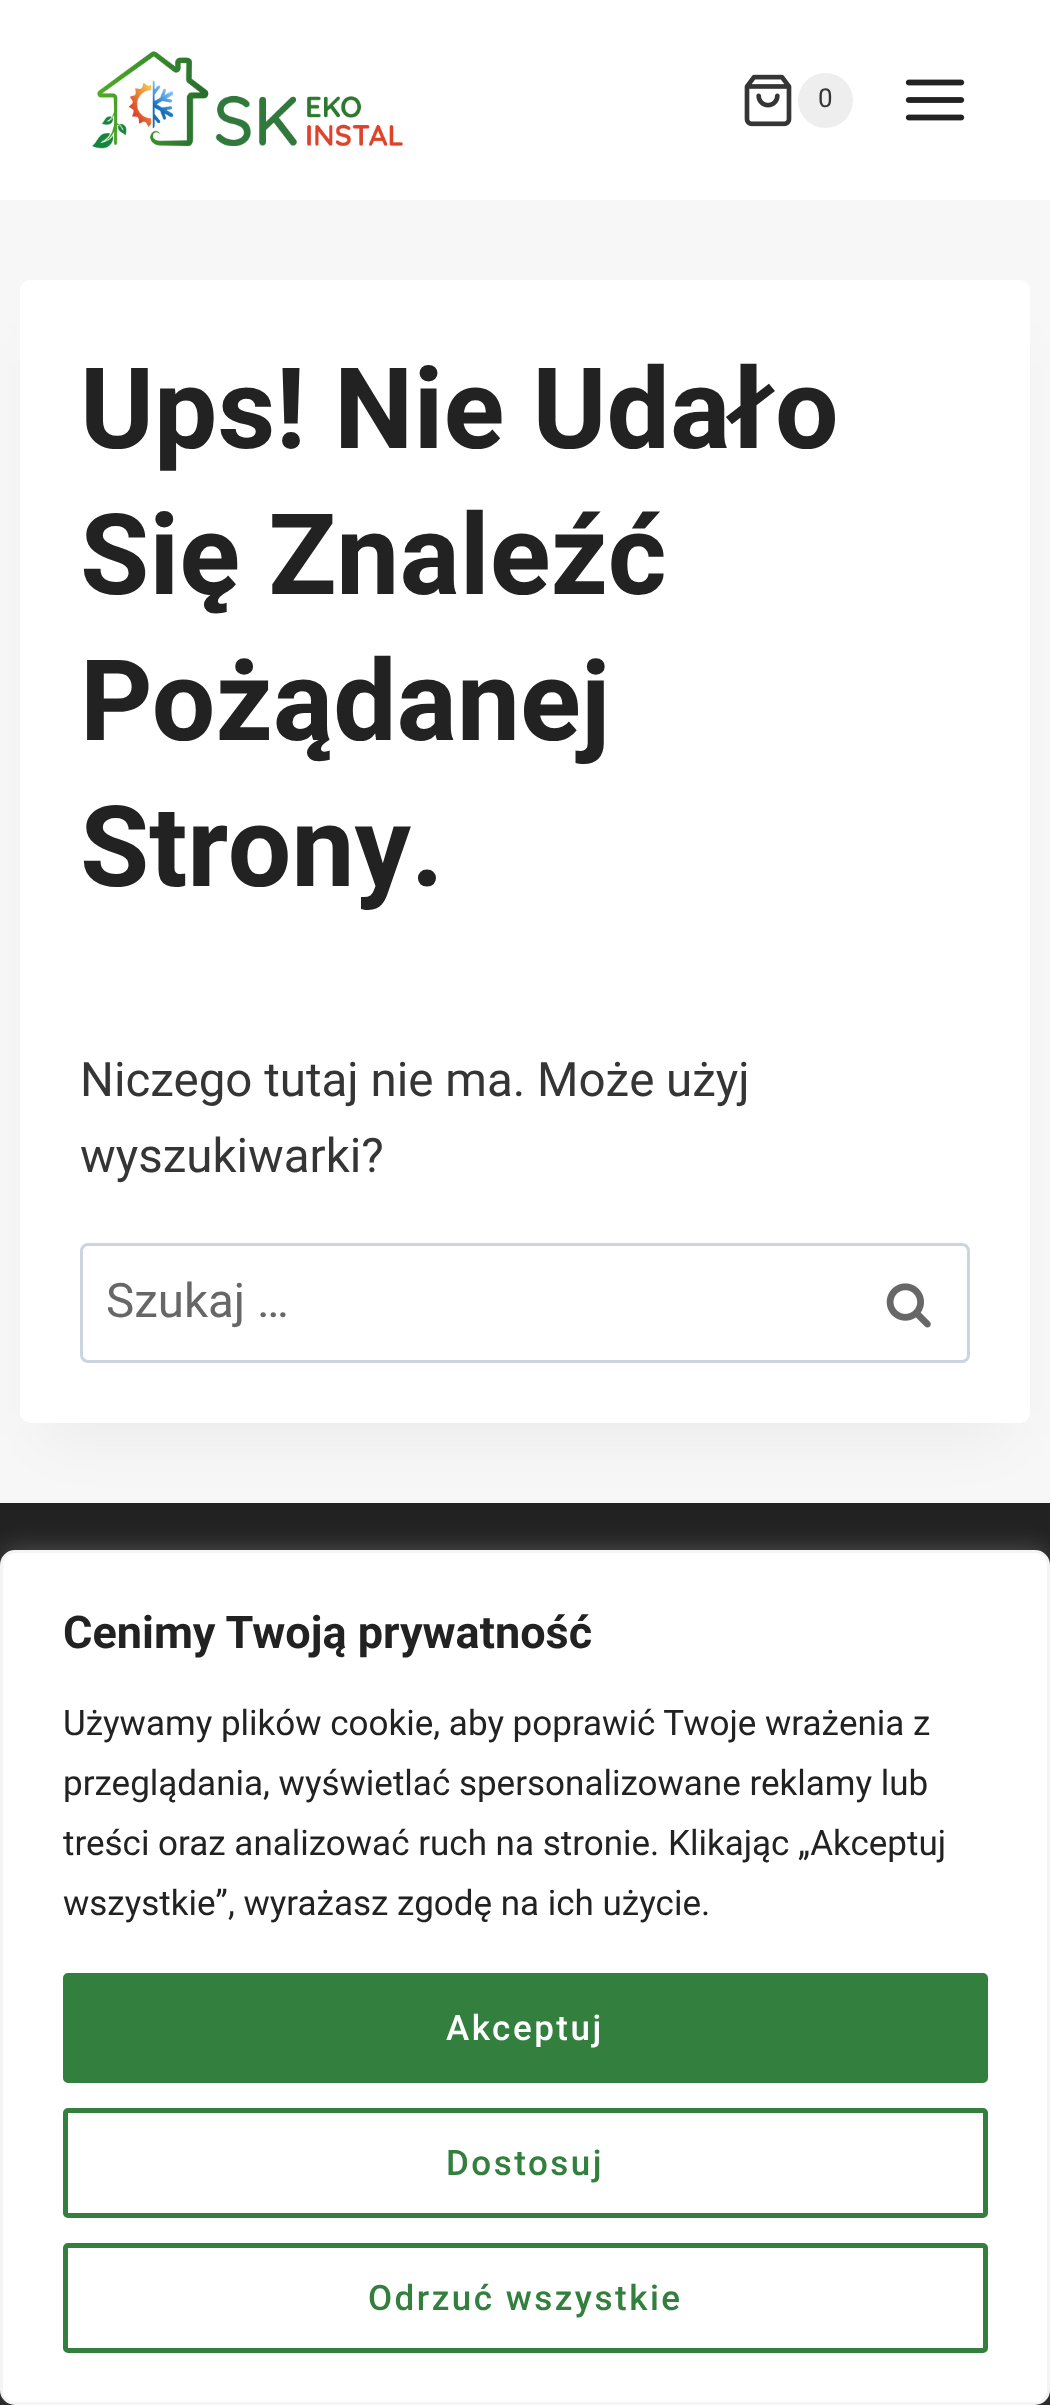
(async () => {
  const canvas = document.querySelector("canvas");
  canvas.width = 1050;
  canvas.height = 2405;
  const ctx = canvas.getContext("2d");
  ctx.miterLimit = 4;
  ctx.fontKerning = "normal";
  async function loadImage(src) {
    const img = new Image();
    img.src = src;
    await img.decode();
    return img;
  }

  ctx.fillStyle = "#f7f7f7";
  ctx.fillRect(0, 0, 1050, 2405);
  ctx.fillStyle = "#ffffff";
  ctx.fillRect(0, 0, 1050, 200);
  ctx.drawImage(await loadImage("img/1.png"), 92, 51, 311, 98);
  ctx.drawImage(await loadImage("img/2.png"), 744, 74, 48, 53);
  ctx.fillStyle = "#eeeeee";
  ctx.beginPath();
  ctx.arc(825.5, 100.5, 27.5, 0, Math.PI * 2);
  ctx.fill();
  ctx.drawImage(await loadImage("img/3.png"), 905, 79, 60, 42);
  ctx.fillStyle = "#222222";
  ctx.fillRect(0, 1503, 1050, 902);
  ctx.fillStyle = "rgba(0, 0, 0, 0.05)";
  ctx.filter = "blur(31px)";
  ctx.beginPath();
  ctx.rect(45, 343, 960, 1092);
  ctx.fill();
  ctx.filter = "none";
  ctx.fillStyle = "#ffffff";
  ctx.beginPath();
  ctx.roundRect(20, 280, 1010, 1143, 10);
  ctx.fill();
  ctx.beginPath();
  ctx.roundRect(81.5, 1244.5, 887, 117, 6.5);
  ctx.strokeStyle = "#cbd5e0";
  ctx.lineWidth = 3;
  ctx.stroke();
  ctx.drawImage(await loadImage("img/4.png"), 886, 1283, 45, 45);
  ctx.fillStyle = "rgba(172, 171, 171, 0.3)";
  ctx.filter = "blur(12.5px)";
  ctx.beginPath();
  ctx.roundRect(0, 1548, 1050, 855, 15);
  ctx.fill();
  ctx.filter = "none";
  ctx.fillStyle = "#ffffff";
  ctx.beginPath();
  ctx.roundRect(1.5, 1551.5, 1047, 852, 13.5);
  ctx.fill();
  ctx.strokeStyle = "#f4f4f4";
  ctx.stroke();
  ctx.fillStyle = "#327f3e";
  ctx.beginPath();
  ctx.roundRect(65.5, 1975.5, 920, 105, 2.5);
  ctx.fill();
  ctx.strokeStyle = "#327f3e";
  ctx.lineWidth = 5;
  ctx.stroke();
  ctx.beginPath();
  ctx.roundRect(65.5, 2110.5, 920, 105, 2.5);
  ctx.stroke();
  ctx.beginPath();
  ctx.roundRect(65.5, 2245.5, 920, 105, 2.5);
  ctx.stroke();
  ctx.font = "26px Roboto";
  ctx.fillStyle = "#353535";
  ctx.fillText("0", 818, 107);
  ctx.font = "bold 112.5px Heebo";
  ctx.fillStyle = "#222222";
  for (const [text, x, y] of [
    ["Ups! Nie Udało", 80, 448],
    ["Się Znaleźć", 80, 594],
    ["Pożądanej", 80, 740],
    ["Strony.", 80, 886],
  ]) {
    ctx.fillText(text, x, y);
  }
  ctx.font = "47.5px Roboto";
  ctx.fillStyle = "#353535";
  ctx.fillText("Niczego tutaj nie ma. Może użyj", 80, 1096);
  ctx.fillText("wyszukiwarki?", 80, 1172);
  ctx.fillStyle = "#676767";
  ctx.fillText("Szukaj …", 106, 1317);
  ctx.font = "bold 45px Roboto";
  ctx.fillStyle = "#222222";
  ctx.fillText("Cenimy Twoją prywatność", 63, 1648);
  ctx.font = "35px Roboto";
  for (const [text, x, y] of [
    ["Używamy plików cookie, aby poprawić Twoje wrażenia z", 63, 1735],
    ["przeglądania, wyświetlać spersonalizowane reklamy lub", 63, 1795],
    ["treści oraz analizować ruch na stronie. Klikając „Akceptuj", 63, 1855],
    ["wszystkie”, wyrażasz zgodę na ich użycie.", 63, 1915],
  ]) {
    ctx.fillText(text, x, y);
  }
  ctx.letterSpacing = "2.5px";
  ctx.font = "500 35px Roboto";
  ctx.fillStyle = "#ffffff";
  ctx.fillText("Akceptuj", 446, 2040);
  ctx.fillStyle = "#327f3e";
  ctx.fillText("Dostosuj", 446, 2175);
  ctx.fillText("Odrzuć wszystkie", 368, 2310);
})();
